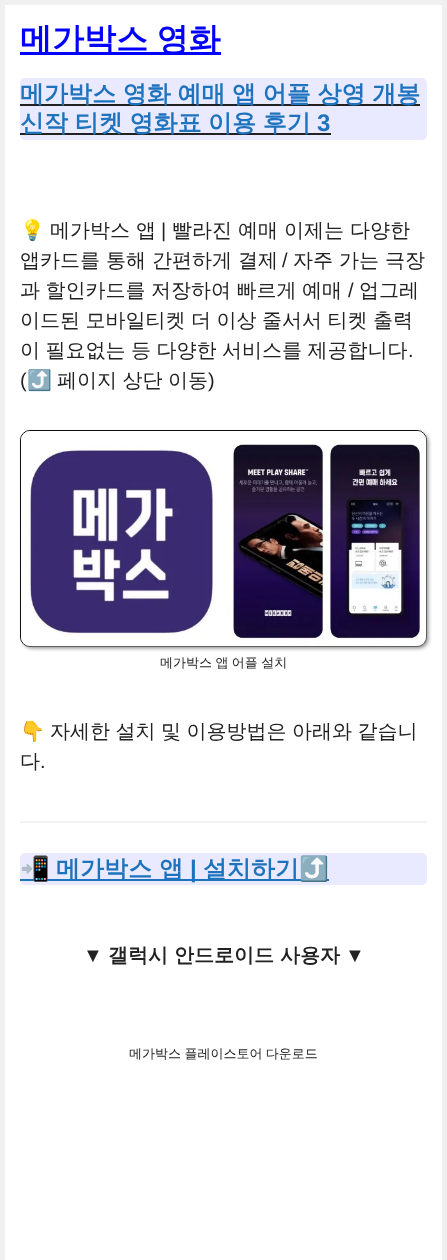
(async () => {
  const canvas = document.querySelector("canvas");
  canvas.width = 447;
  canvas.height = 1260;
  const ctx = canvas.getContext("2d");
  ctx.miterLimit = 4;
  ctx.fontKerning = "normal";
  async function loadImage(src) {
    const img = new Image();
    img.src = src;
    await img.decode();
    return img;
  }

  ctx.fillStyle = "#f0f0f0";
  ctx.fillRect(0, 0, 447, 1260);
  ctx.fillStyle = "#ffffff";
  ctx.fillRect(5, 5, 437, 1255);
  ctx.fillStyle = "#0000ff";
  ctx.fillRect(20, 52, 201, 3);
  ctx.fillStyle = "#e9e9ff";
  ctx.beginPath();
  ctx.roundRect(20, 78, 407, 62, 5);
  ctx.fill();
  ctx.fillStyle = "#222222";
  ctx.fillRect(20, 104, 400, 2);
  ctx.fillRect(20, 133, 311, 2);
  ctx.beginPath();
  ctx.roundRect(20.5, 430.5, 406, 216, 9.5);
  ctx.strokeStyle = "#000000";
  ctx.stroke();
  ctx.drawImage(await loadImage("img/1.png"), 19, 429, 413, 223);
  ctx.fillStyle = "#f2f2f2";
  ctx.fillRect(20, 821, 407, 2);
  ctx.fillStyle = "#e9e9ff";
  ctx.beginPath();
  ctx.roundRect(20, 853, 407, 32, 5);
  ctx.fill();
  ctx.fillStyle = "#1e73be";
  ctx.fillRect(20, 879, 309, 2);
  ctx.wordSpacing = "-1px";
  ctx.font = "bold 32px WenQuanYi Zen Hei";
  ctx.fillStyle = "#0000ff";
  ctx.fillText("메가박스 영화", 20, 50);
  ctx.wordSpacing = "-0.5px";
  ctx.font = "bold 24px WenQuanYi Zen Hei";
  ctx.fillStyle = "#1e73be";
  ctx.fillText("메가박스 영화 예매 앱 어플 상영 개봉", 20, 102);
  ctx.fillText("신작 티켓 영화표 이용 후기", 20, 131);
  ctx.wordSpacing = "0px";
  ctx.font = "bold 24px Liberation Sans";
  ctx.fillText("3", 317, 131);
  ctx.font = "20px Noto Color Emoji";
  ctx.fillStyle = "#222222";
  ctx.fillText("💡", 20, 237);
  ctx.font = "500 20px WenQuanYi Zen Hei";
  ctx.fillText("메가박스 앱", 50, 237);
  ctx.font = "20px Liberation Sans";
  ctx.fillText("|", 161, 237);
  ctx.font = "500 20px WenQuanYi Zen Hei";
  ctx.fillText("빨라진 예매 이제는 다양한", 172, 237);
  ctx.fillText("앱카드를 통해 간편하게 결제", 20, 267);
  ctx.font = "20px Liberation Sans";
  ctx.fillText("/", 282, 267);
  ctx.font = "500 20px WenQuanYi Zen Hei";
  ctx.fillText("자주 가는 극장", 293, 267);
  ctx.wordSpacing = "-0.5px";
  ctx.fillText("과 할인카드를 저장하여 빠르게 예매", 20, 297);
  ctx.wordSpacing = "0px";
  ctx.font = "20px Liberation Sans";
  ctx.fillText("/", 348, 297);
  ctx.font = "500 20px WenQuanYi Zen Hei";
  ctx.fillText("업그레", 359, 297);
  ctx.wordSpacing = "-0.5px";
  ctx.fillText("이드된 모바일티켓 더 이상 줄서서 티켓 출력", 20, 327);
  ctx.fillText("이 필요없는 등 다양한 서비스를 제공합니다", 20, 357);
  ctx.wordSpacing = "0px";
  ctx.font = "20px Liberation Sans";
  ctx.fillText(".", 408, 357);
  ctx.fillText("(", 20, 387);
  ctx.font = "20px Noto Color Emoji";
  ctx.fillText("⤴️", 27, 387);
  ctx.wordSpacing = "-0.5px";
  ctx.font = "500 20px WenQuanYi Zen Hei";
  ctx.fillText("페이지 상단 이동", 57, 387);
  ctx.wordSpacing = "0px";
  ctx.font = "20px Liberation Sans";
  ctx.fillText(")", 208, 387);
  ctx.wordSpacing = "-0.5px";
  ctx.font = "500 13px WenQuanYi Zen Hei";
  ctx.fillText("메가박스 앱 어플 설치", 160, 667);
  ctx.wordSpacing = "0px";
  ctx.font = "20px Noto Color Emoji";
  ctx.fillText("👇", 20, 738);
  ctx.wordSpacing = "-0.5px";
  ctx.font = "500 20px WenQuanYi Zen Hei";
  ctx.fillText("자세한 설치 및 이용방법은 아래와 같습니", 50, 738);
  ctx.wordSpacing = "0px";
  ctx.fillText("다", 20, 768);
  ctx.font = "20px Liberation Sans";
  ctx.fillText(".", 40, 768);
  ctx.font = "bold 24px Noto Color Emoji";
  ctx.fillStyle = "#1e73be";
  ctx.fillText("📲", 20, 877);
  ctx.font = "bold 24px WenQuanYi Zen Hei";
  ctx.fillText("메가박스 앱", 56, 877);
  ctx.font = "bold 24px Liberation Sans";
  ctx.fillText("|", 190, 877);
  ctx.font = "bold 24px WenQuanYi Zen Hei";
  ctx.fillText("설치하기", 203, 877);
  ctx.font = "bold 24px Noto Color Emoji";
  ctx.fillText("⤴️", 299, 877);
  ctx.font = "bold 20px Liberation Sans";
  ctx.fillStyle = "#222222";
  ctx.fillText("▼", 83, 962);
  ctx.font = "bold 20px WenQuanYi Zen Hei";
  ctx.fillText("갤럭시 안드로이드 사용자", 108, 962);
  ctx.font = "bold 20px Liberation Sans";
  ctx.fillText("▼", 345, 962);
  ctx.wordSpacing = "-0.5px";
  ctx.font = "500 13px WenQuanYi Zen Hei";
  ctx.fillText("메가박스 플레이스토어 다운로드", 129, 1058);
})();
